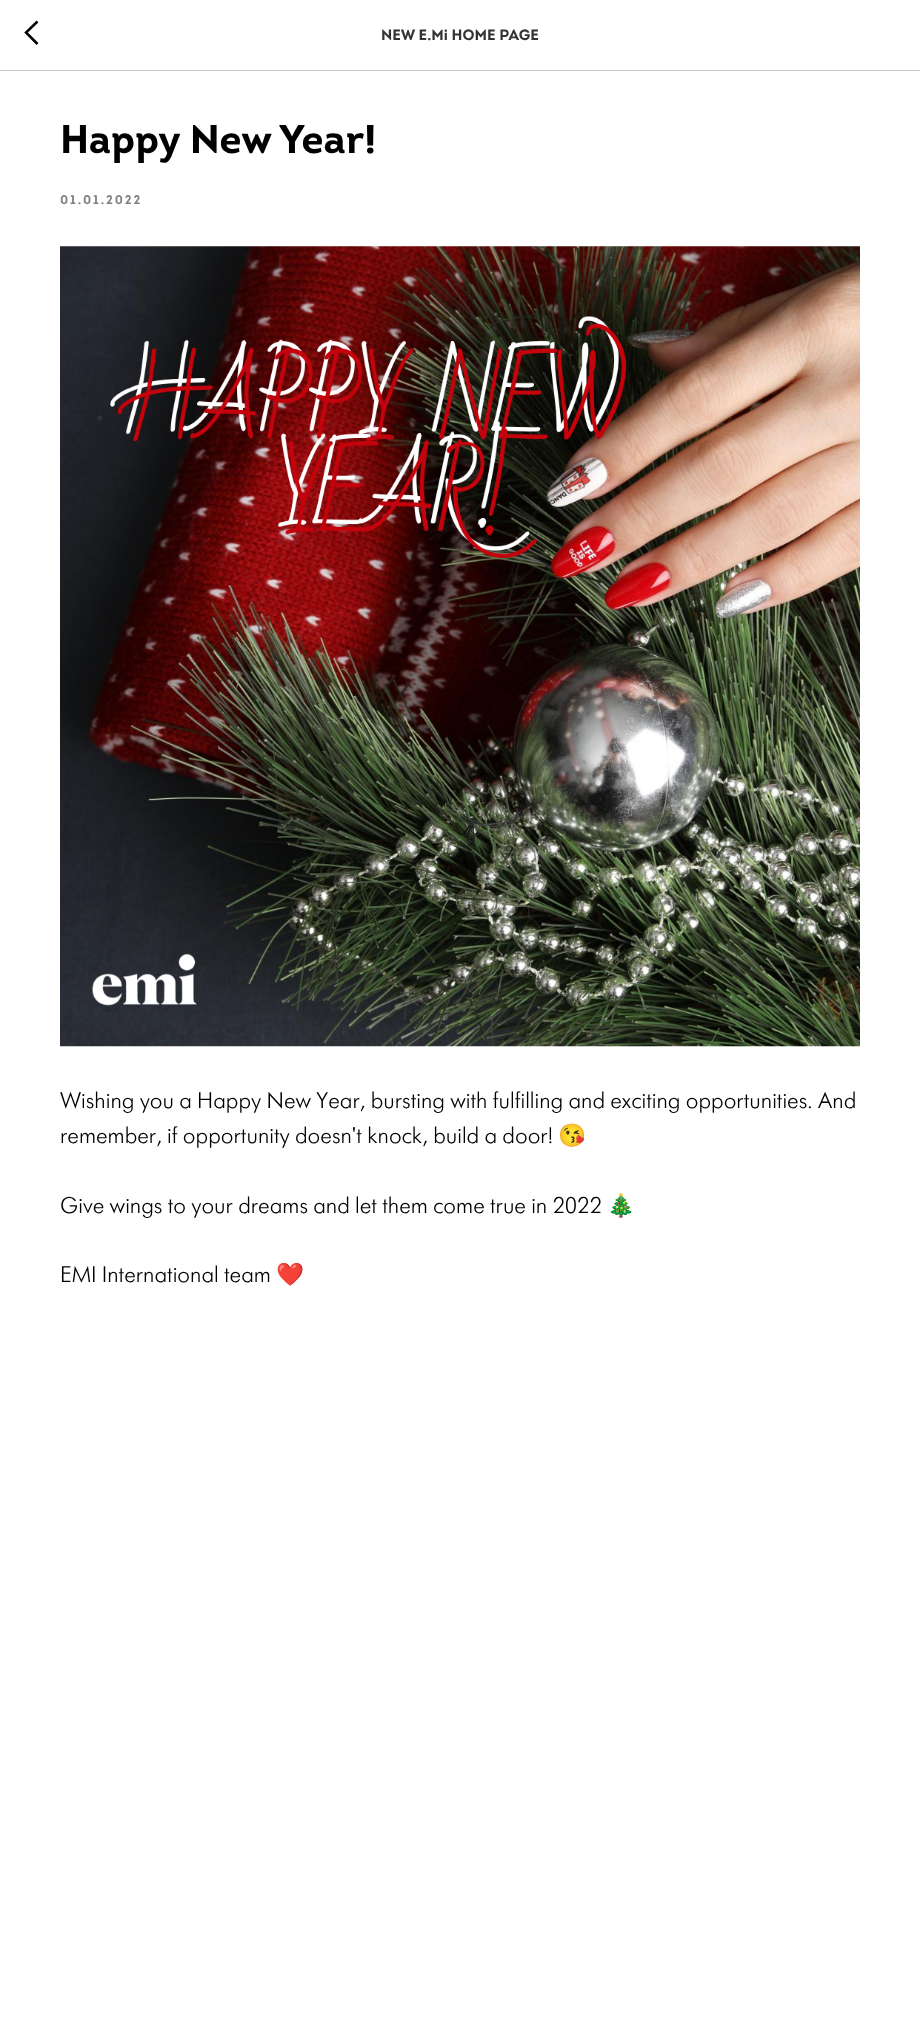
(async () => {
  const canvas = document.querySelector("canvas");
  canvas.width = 920;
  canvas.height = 2024;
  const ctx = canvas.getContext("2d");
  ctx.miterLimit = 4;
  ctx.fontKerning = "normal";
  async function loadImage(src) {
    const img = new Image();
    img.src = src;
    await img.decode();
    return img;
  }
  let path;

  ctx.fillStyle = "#ffffff";
  ctx.fillRect(0, 0, 920, 2024);
  ctx.fillStyle = "#cccccc";
  ctx.fillRect(0, 70, 920, 1);
  path = new Path2D("M37.5 44L26 32.5L37.5 21.5");
  ctx.strokeStyle = "#000000";
  ctx.lineWidth = 2.5;
  ctx.stroke(path);
  ctx.drawImage(await loadImage("img/1.png"), 60, 246, 800, 801);
  ctx.font = "bold 15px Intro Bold";
  ctx.fillStyle = "#333333";
  ctx.fillText("NEW E.Mi HOME PAGE", 381, 40);
  ctx.font = "bold 40px Intro Bold";
  ctx.fillStyle = "#000000";
  ctx.fillText("Happy New Year!", 60, 153);
  ctx.letterSpacing = "1.9px";
  ctx.font = "bold 12.5px Intro Bold";
  ctx.fillStyle = "#808080";
  ctx.fillText("01.01.2022", 60, 204);
  ctx.letterSpacing = "0px";
  ctx.font = "300 22.5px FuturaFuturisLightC";
  ctx.fillStyle = "#000000";
  ctx.fillText("Wishing you a Happy New Year, bursting with fulfilling and exciting opportunities. And", 60, 1108);
  ctx.fillText("remember, if opportunity doesn't knock, build a door!", 60, 1143);
  ctx.font = "22.5px Noto Color Emoji";
  ctx.fillText("😘", 558, 1143);
  ctx.font = "300 22.5px FuturaFuturisLightC";
  ctx.fillText("Give wings to your dreams and let them come true in 2022", 60, 1213);
  ctx.font = "22.5px Noto Color Emoji";
  ctx.fillText("🎄", 607, 1213);
  ctx.font = "300 22.5px FuturaFuturisLightC";
  ctx.fillText("EMI International team", 60, 1282);
  ctx.font = "22.5px Noto Color Emoji";
  ctx.fillText("❤️", 276, 1282);
})();
